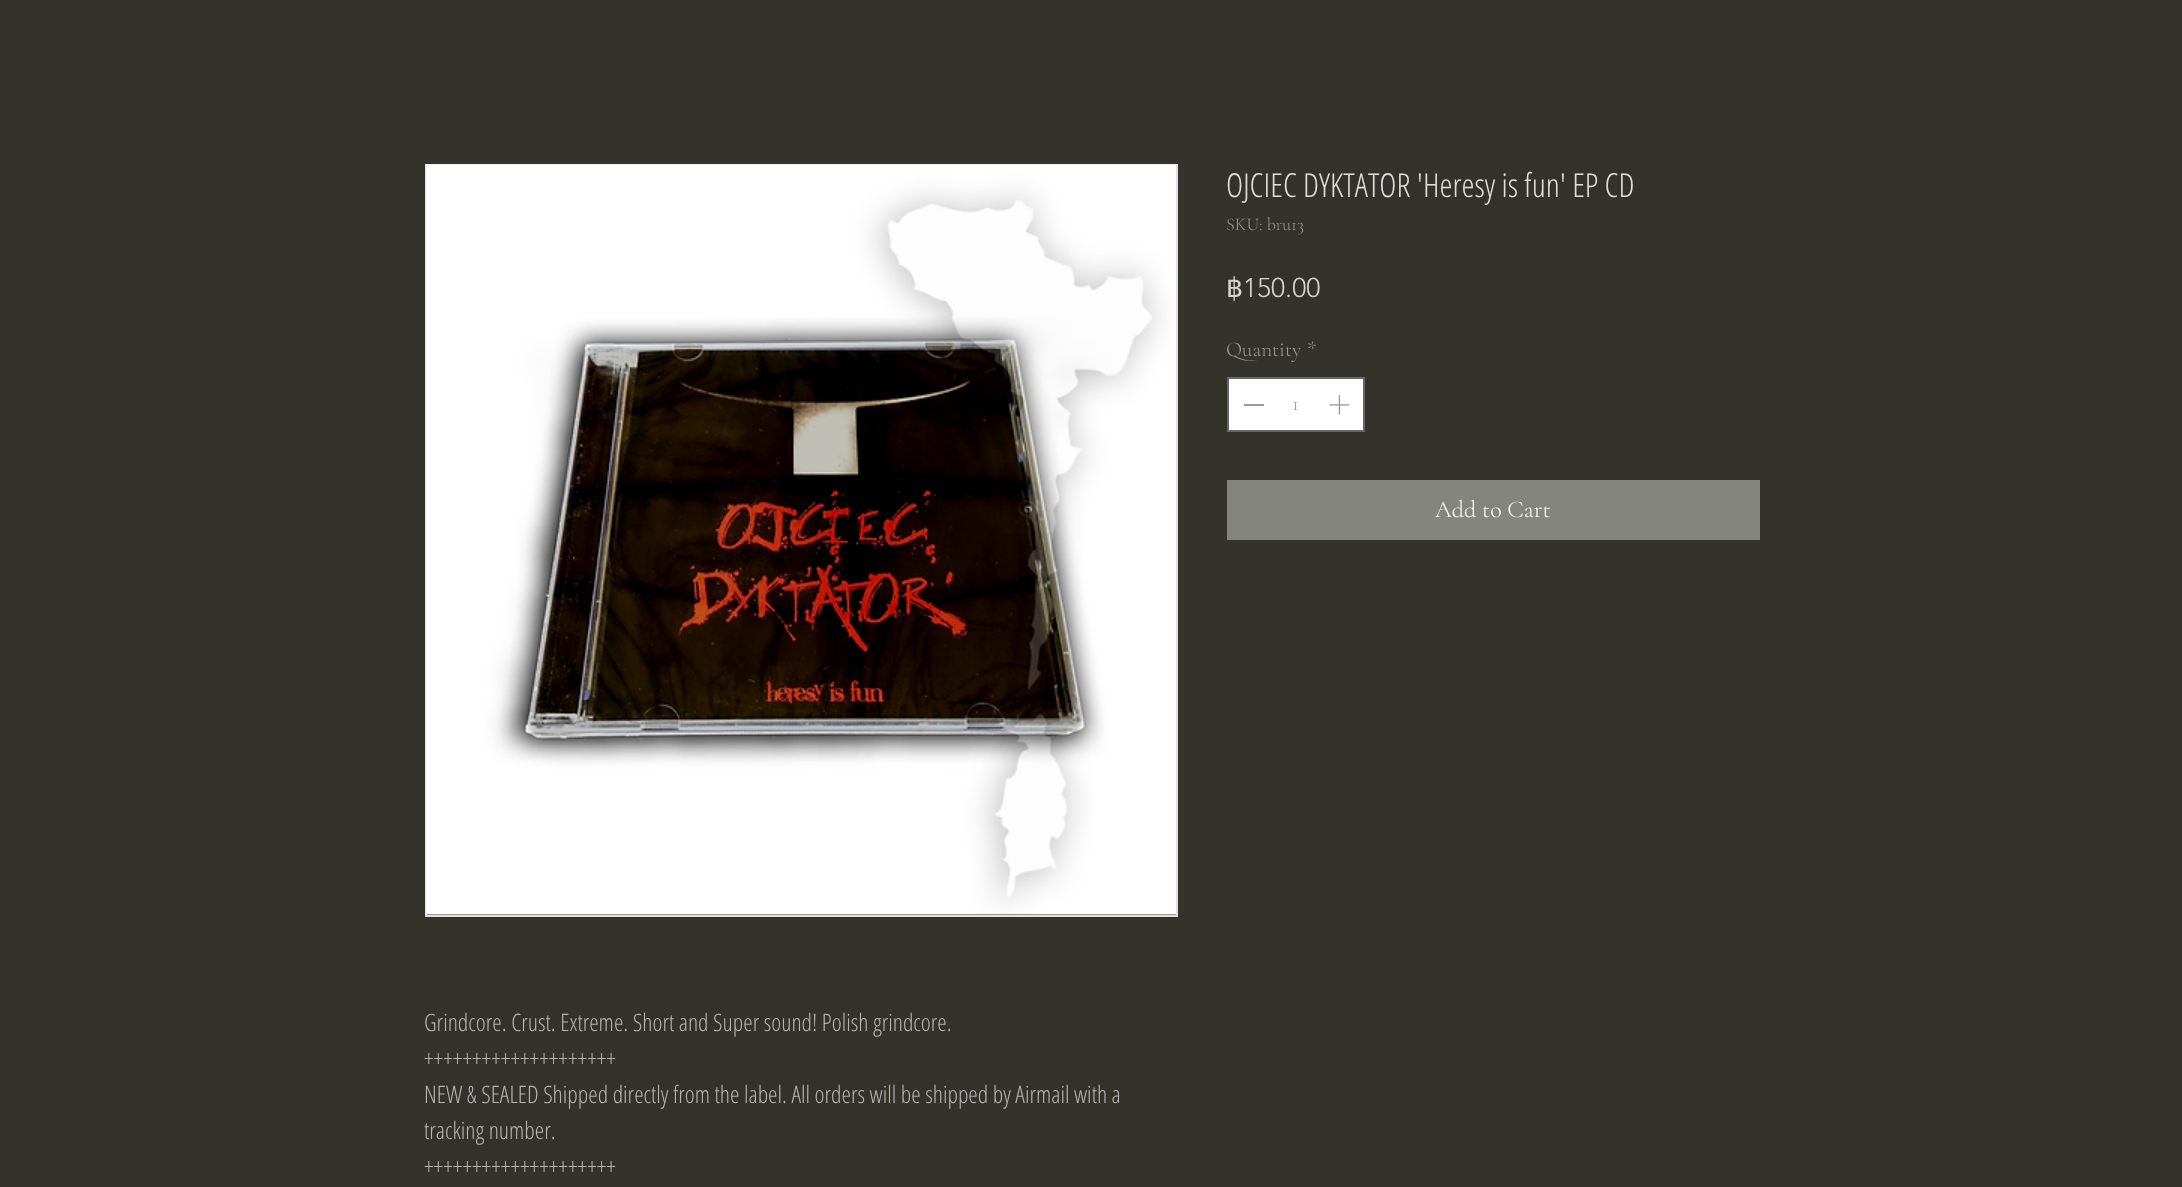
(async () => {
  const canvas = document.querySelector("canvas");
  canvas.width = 2182;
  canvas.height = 1187;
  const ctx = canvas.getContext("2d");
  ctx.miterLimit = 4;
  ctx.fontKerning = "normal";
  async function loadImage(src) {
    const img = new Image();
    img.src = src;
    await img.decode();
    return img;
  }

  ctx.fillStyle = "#33332c";
  ctx.fillRect(0, 0, 2182, 1187);
  ctx.fillStyle = "#ffffff";
  ctx.beginPath();
  ctx.rect(1228, 378, 136, 53);
  ctx.fill();
  ctx.strokeStyle = "#666666";
  ctx.lineWidth = 2;
  ctx.stroke();
  ctx.fillStyle = "#999997";
  ctx.fillRect(1244, 404, 20, 2);
  ctx.drawImage(await loadImage("img/1.png"), 1329, 395, 21, 20);
  ctx.fillStyle = "#85857f";
  ctx.fillRect(1227, 480, 533, 60);
  ctx.strokeStyle = "#e0dede";
  ctx.strokeRect(426, 165, 751, 751);
  ctx.drawImage(await loadImage("img/2.png"), 426, 164, 750, 751);
  ctx.font = "300 33px Open Sans Condensed";
  ctx.fillStyle = "#e0dede";
  ctx.fillText("OJCIEC DYKTATOR 'Heresy is fun' EP CD", 1226, 197);
  ctx.font = "300 18px Cormorant Garamond";
  ctx.fillStyle = "#999997";
  ctx.fillText("SKU: bru13", 1226, 230);
  ctx.font = "27px DejaVu Sans";
  ctx.fillStyle = "#d6d6d0";
  ctx.fillText("฿", 1226, 297);
  ctx.font = "300 27px 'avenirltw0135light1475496'";
  ctx.fillText("150.00", 1243, 297);
  ctx.font = "300 21px Cormorant Garamond";
  ctx.fillStyle = "#999997";
  for (const [text, x, y] of [
    ["Quantity", 1226, 356],
    ["*", 1307, 356],
    ["1", 1292, 410],
  ]) {
    ctx.fillText(text, x, y);
  }
  ctx.font = "300 24px Cormorant Garamond";
  ctx.fillStyle = "#ffffff";
  ctx.fillText("Add to Cart", 1435, 517);
  ctx.font = "300 24px Open Sans Condensed";
  ctx.fillStyle = "#b5b5b5";
  for (const [text, x, y] of [
    ["Grindcore. Crust. Extreme. Short and Super sound! Polish grindcore.", 424, 1031],
    ["++++++++++++++++++++", 424, 1067],
    ["NEW & SEALED Shipped directly from the label. All orders will be shipped by Airmail with a", 424, 1103],
    ["tracking number.", 424, 1139],
    ["++++++++++++++++++++", 424, 1175],
  ]) {
    ctx.fillText(text, x, y);
  }
})();
